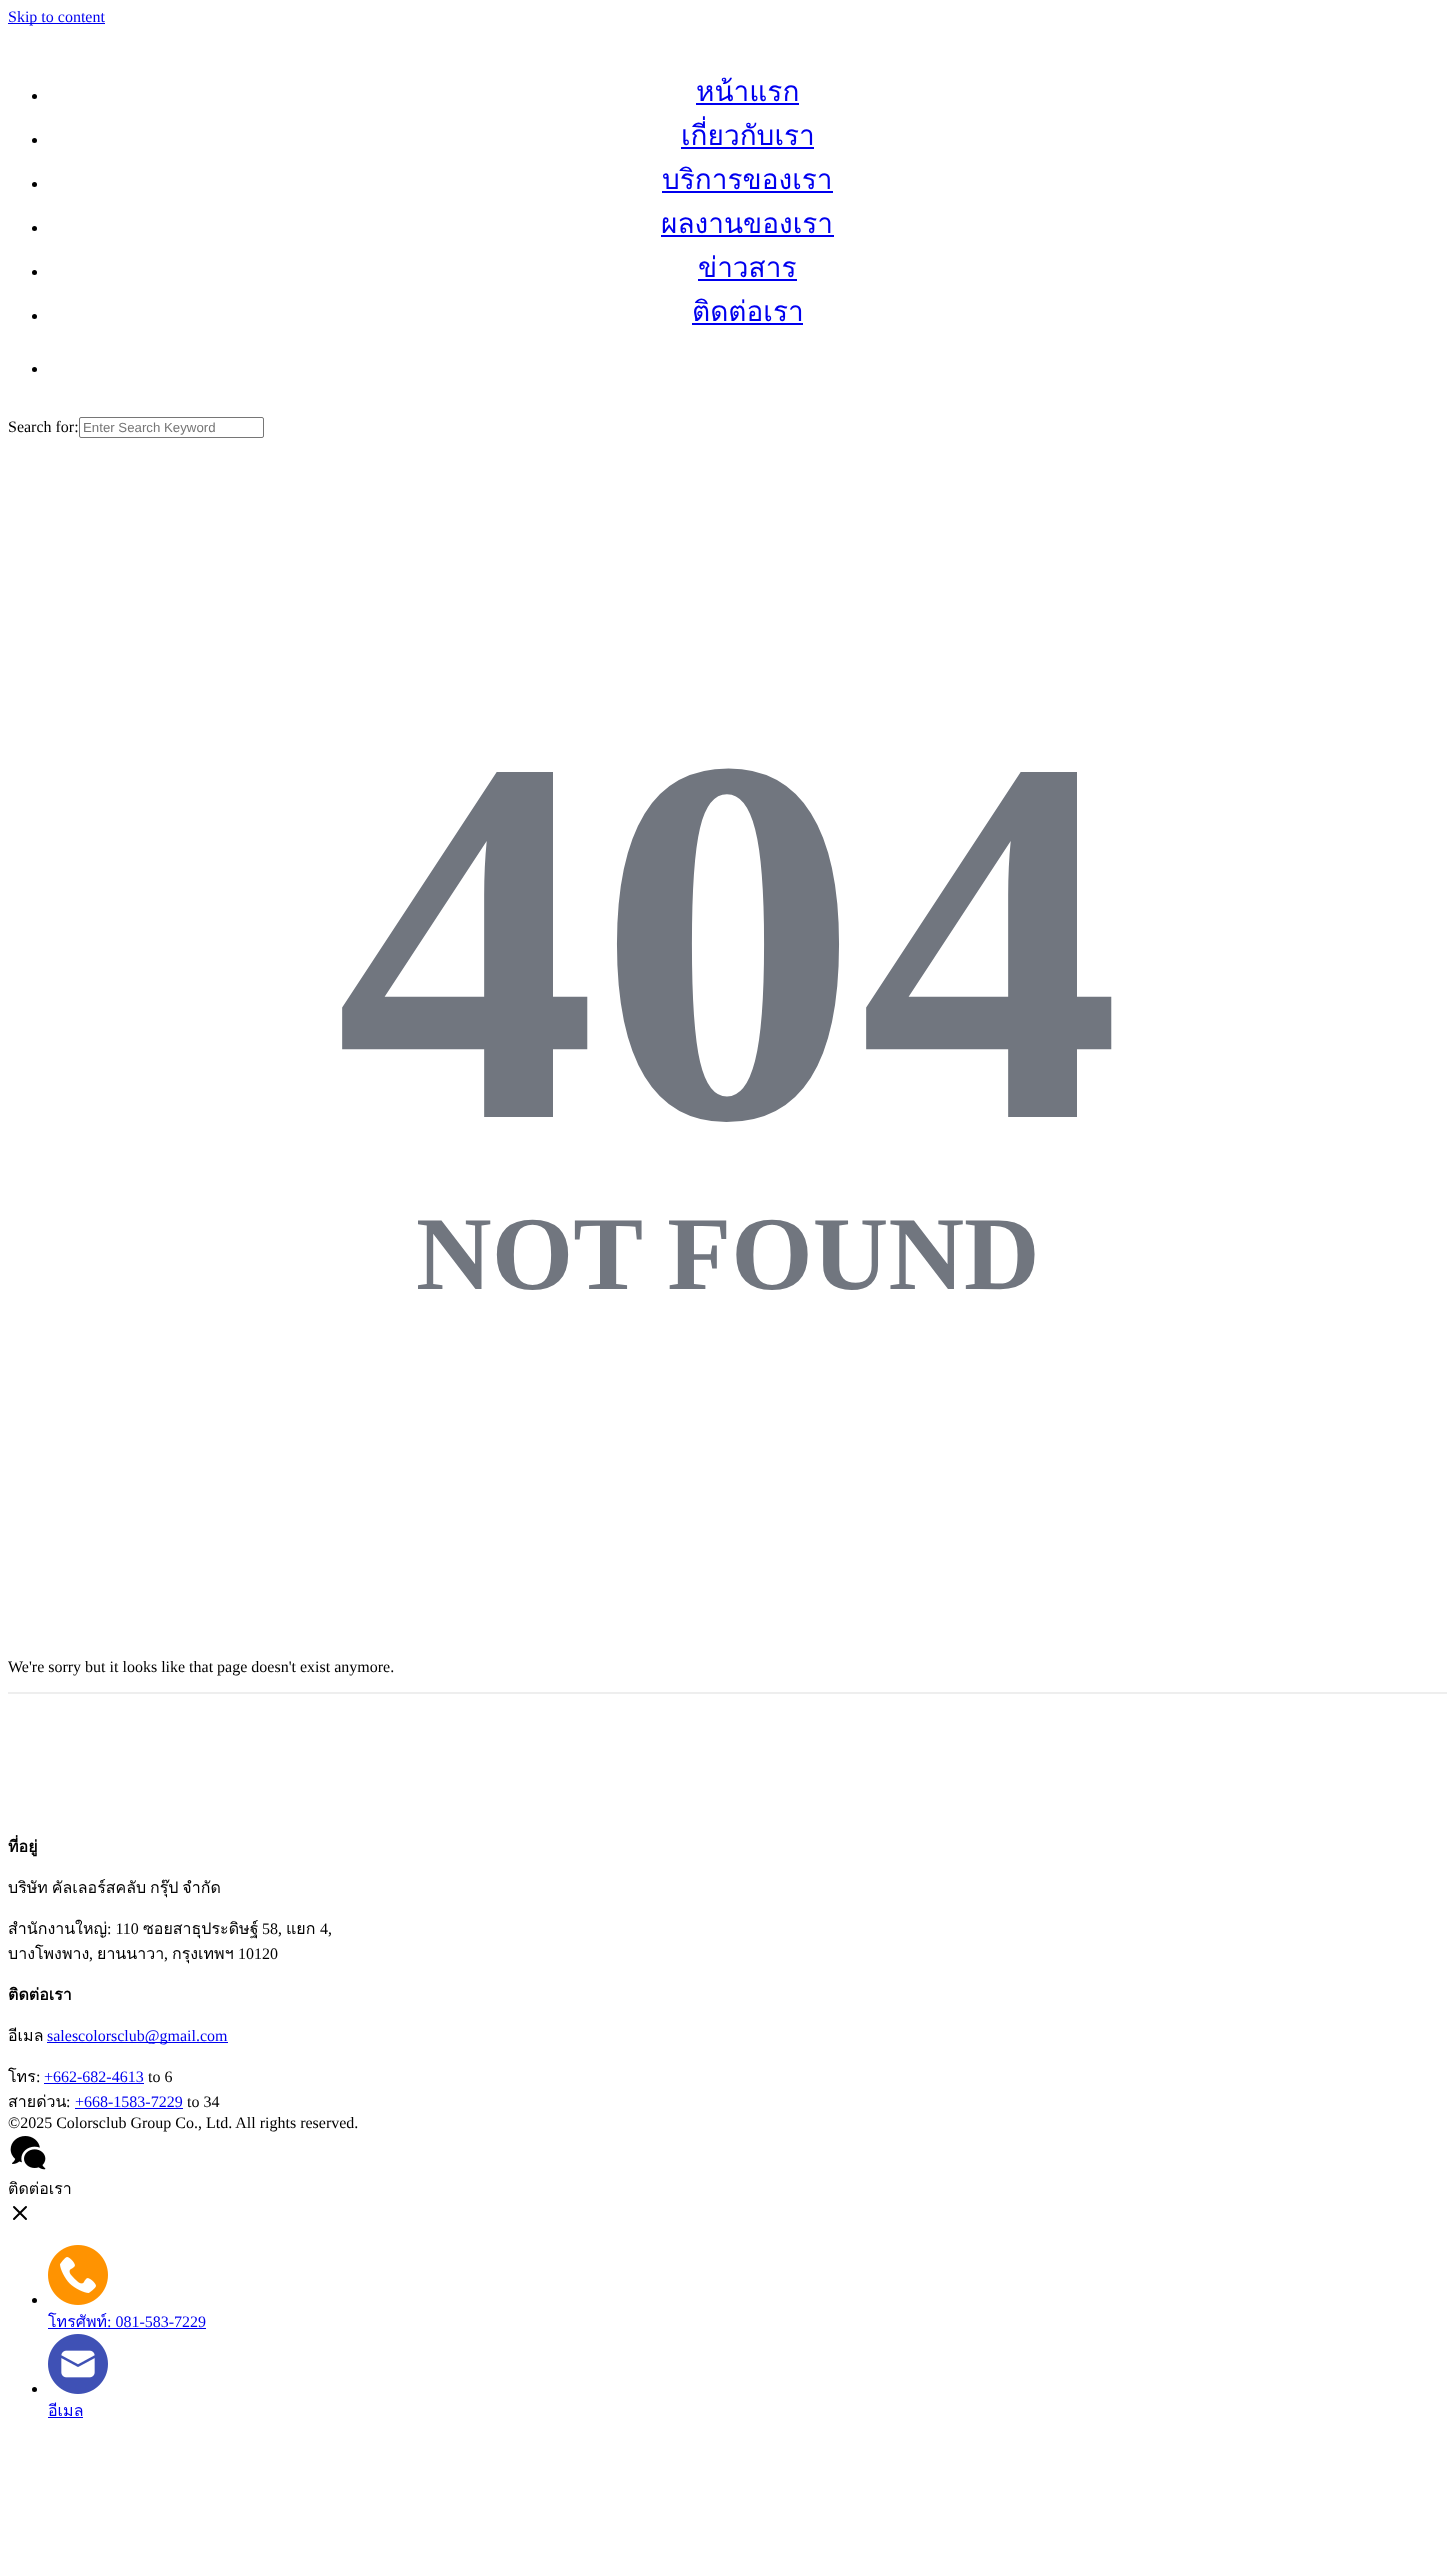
(async () => {
  const canvas = document.querySelector("canvas");
  canvas.width = 1455;
  canvas.height = 2567;
  const ctx = canvas.getContext("2d");
  ctx.miterLimit = 4;
  ctx.fontKerning = "normal";
  async function loadImage(src) {
    const img = new Image();
    img.src = src;
    await img.decode();
    return img;
  }
  let path;

  ctx.fillStyle = "#ffffff";
  ctx.fillRect(0, 0, 1455, 2567);
  ctx.fillStyle = "#0000ee";
  ctx.fillRect(8, 23, 97, 1);
  ctx.fillStyle = "#000000";
  ctx.beginPath();
  ctx.arc(34.5, 96.5, 2.5, 0, Math.PI * 2);
  ctx.fill();
  ctx.fillStyle = "#0000ee";
  ctx.fillRect(696, 103, 103, 2);
  ctx.fillStyle = "#000000";
  ctx.beginPath();
  ctx.arc(34.5, 140.5, 2.5, 0, Math.PI * 2);
  ctx.fill();
  ctx.fillStyle = "#0000ee";
  ctx.fillRect(681, 147, 133, 2);
  ctx.fillStyle = "#000000";
  ctx.beginPath();
  ctx.arc(34.5, 184.5, 2.5, 0, Math.PI * 2);
  ctx.fill();
  ctx.fillStyle = "#0000ee";
  ctx.fillRect(662, 191, 171, 2);
  ctx.fillStyle = "#000000";
  ctx.beginPath();
  ctx.arc(34.5, 228.5, 2.5, 0, Math.PI * 2);
  ctx.fill();
  ctx.fillStyle = "#0000ee";
  ctx.fillRect(661, 235, 173, 2);
  ctx.fillStyle = "#000000";
  ctx.beginPath();
  ctx.arc(34.5, 272.5, 2.5, 0, Math.PI * 2);
  ctx.fill();
  ctx.fillStyle = "#0000ee";
  ctx.fillRect(698, 279, 99, 2);
  ctx.fillStyle = "#000000";
  ctx.beginPath();
  ctx.arc(34.5, 316.5, 2.5, 0, Math.PI * 2);
  ctx.fill();
  ctx.fillStyle = "#0000ee";
  ctx.fillRect(692, 323, 111, 2);
  ctx.fillStyle = "#000000";
  ctx.beginPath();
  ctx.arc(34.5, 369.5, 2.5, 0, Math.PI * 2);
  ctx.fill();
  ctx.beginPath();
  ctx.roundRect(79.5, 417.5, 184, 20, 1.5);
  ctx.strokeStyle = "#767676";
  ctx.stroke();
  for (const [x, y, w, h, color] of [
    [8, 1692, 1439, 2, "#eeeeee"],
    [47, 2042, 181, 1, "#0000ee"],
    [44, 2083, 100, 1, "#0000ee"],
    [75, 2108, 108, 1, "#0000ee"],
  ]) {
    ctx.fillStyle = color;
    ctx.fillRect(x, y, w, h);
  }
  ctx.drawImage(await loadImage("img/1.png"), 10, 2136, 36, 34);
  path = new Path2D("M26 2207L14 2219M14 2207L26 2219");
  ctx.strokeStyle = "#000000";
  ctx.lineWidth = 2;
  ctx.lineCap = "round";
  ctx.lineJoin = "round";
  ctx.stroke(path);
  ctx.fillStyle = "#000000";
  ctx.beginPath();
  ctx.arc(34.5, 2300.5, 2.5, 0, Math.PI * 2);
  ctx.fill();
  ctx.drawImage(await loadImage("img/2.png"), 48, 2245, 60, 60);
  ctx.fillStyle = "#0000ee";
  ctx.fillRect(48, 2328, 158, 1);
  ctx.fillStyle = "#000000";
  ctx.beginPath();
  ctx.arc(34.5, 2389.5, 2.5, 0, Math.PI * 2);
  ctx.fill();
  ctx.drawImage(await loadImage("img/3.png"), 48, 2334, 60, 60);
  ctx.fillStyle = "#0000ee";
  ctx.fillRect(48, 2417, 35, 1);
  ctx.font = "16px Liberation Serif";
  ctx.fillText("Skip to content", 8, 22);
  ctx.font = "28px Loma";
  for (const [text, x, y] of [
    ["หน้าแรก", 696, 101],
    ["เกี่ยวกับเรา", 681, 145],
    ["บริการของเรา", 662, 189],
    ["ผลงานของเรา", 661, 233],
    ["ข่าวสาร", 698, 277],
    ["ติดต่อเรา", 692, 321],
  ]) {
    ctx.fillText(text, x, y);
  }
  ctx.font = "16px Liberation Serif";
  ctx.fillStyle = "#000000";
  ctx.fillText("Search for:", 8, 432);
  ctx.font = "13.25px Liberation Sans";
  ctx.fillStyle = "#757575";
  ctx.fillText("Enter Search Keyword", 83, 432);
  ctx.font = "bold 524px Liberation Serif";
  ctx.fillStyle = "#71767f";
  ctx.fillText("404", 335, 1117);
  ctx.font = "bold 104.75px Liberation Serif";
  ctx.fillText("NOT FOUND", 416, 1289);
  ctx.font = "16px Liberation Serif";
  ctx.fillStyle = "#000000";
  ctx.fillText("We're sorry but it looks like that page doesn't exist anymore.", 8, 1672);
  ctx.font = "bold 16px Loma";
  ctx.fillText("ที่อยู่", 8, 1852);
  ctx.wordSpacing = "-1.5px";
  ctx.font = "16px Loma";
  ctx.fillText("บริษัท คัลเลอร์สคลับ กรุ๊ป จำกัด", 8, 1893);
  ctx.wordSpacing = "0px";
  ctx.fillText("สำนักงานใหญ่", 8, 1934);
  ctx.font = "16px Liberation Serif";
  ctx.fillText(": 110", 107, 1934);
  ctx.font = "16px Loma";
  ctx.fillText("ซอยสาธุประดิษฐ์", 143, 1934);
  ctx.font = "16px Liberation Serif";
  ctx.fillText("58,", 262, 1934);
  ctx.font = "16px Loma";
  ctx.fillText("แยก", 286, 1934);
  ctx.font = "16px Liberation Serif";
  ctx.fillText("4,", 320, 1934);
  ctx.font = "16px Loma";
  ctx.fillText("บางโพงพาง", 8, 1959);
  ctx.font = "16px Liberation Serif";
  ctx.fillText(",", 89, 1959);
  ctx.font = "16px Loma";
  ctx.fillText("ยานนาวา", 97, 1959);
  ctx.font = "16px Liberation Serif";
  ctx.fillText(",", 164, 1959);
  ctx.font = "16px Loma";
  ctx.fillText("กรุงเทพฯ", 172, 1959);
  ctx.font = "16px Liberation Serif";
  ctx.fillText("10120", 238, 1959);
  ctx.font = "bold 16px Loma";
  ctx.fillText("ติดต่อเรา", 8, 2000);
  ctx.font = "16px Loma";
  ctx.fillText("อีเมล", 8, 2041);
  ctx.font = "16px Liberation Serif";
  ctx.fillStyle = "#0000ee";
  ctx.fillText("salescolorsclub@gmail.com", 47, 2041);
  ctx.font = "16px Loma";
  ctx.fillStyle = "#000000";
  ctx.fillText("โทร", 8, 2082);
  ctx.font = "16px Liberation Serif";
  ctx.fillText(":", 36, 2082);
  ctx.fillStyle = "#0000ee";
  ctx.fillText("+662-682-4613", 44, 2082);
  ctx.fillStyle = "#000000";
  ctx.fillText("to 6", 148, 2082);
  ctx.font = "16px Loma";
  ctx.fillText("สายด่วน", 8, 2107);
  ctx.font = "16px Liberation Serif";
  ctx.fillText(":", 66, 2107);
  ctx.fillStyle = "#0000ee";
  ctx.fillText("+668-1583-7229", 75, 2107);
  ctx.fillStyle = "#000000";
  ctx.fillText("to 34", 187, 2107);
  ctx.fillText("©2025 Colorsclub Group Co., Ltd. All rights reserved.", 8, 2128);
  ctx.font = "16px Loma";
  ctx.fillText("ติดต่อเรา", 8, 2194);
  ctx.fillStyle = "#0000ee";
  ctx.fillText("โทรศัพท์", 48, 2327);
  ctx.font = "16px Liberation Serif";
  ctx.fillText(": 081-583-7229", 107, 2327);
  ctx.font = "16px Loma";
  ctx.fillText("อีเมล", 48, 2416);
})();
